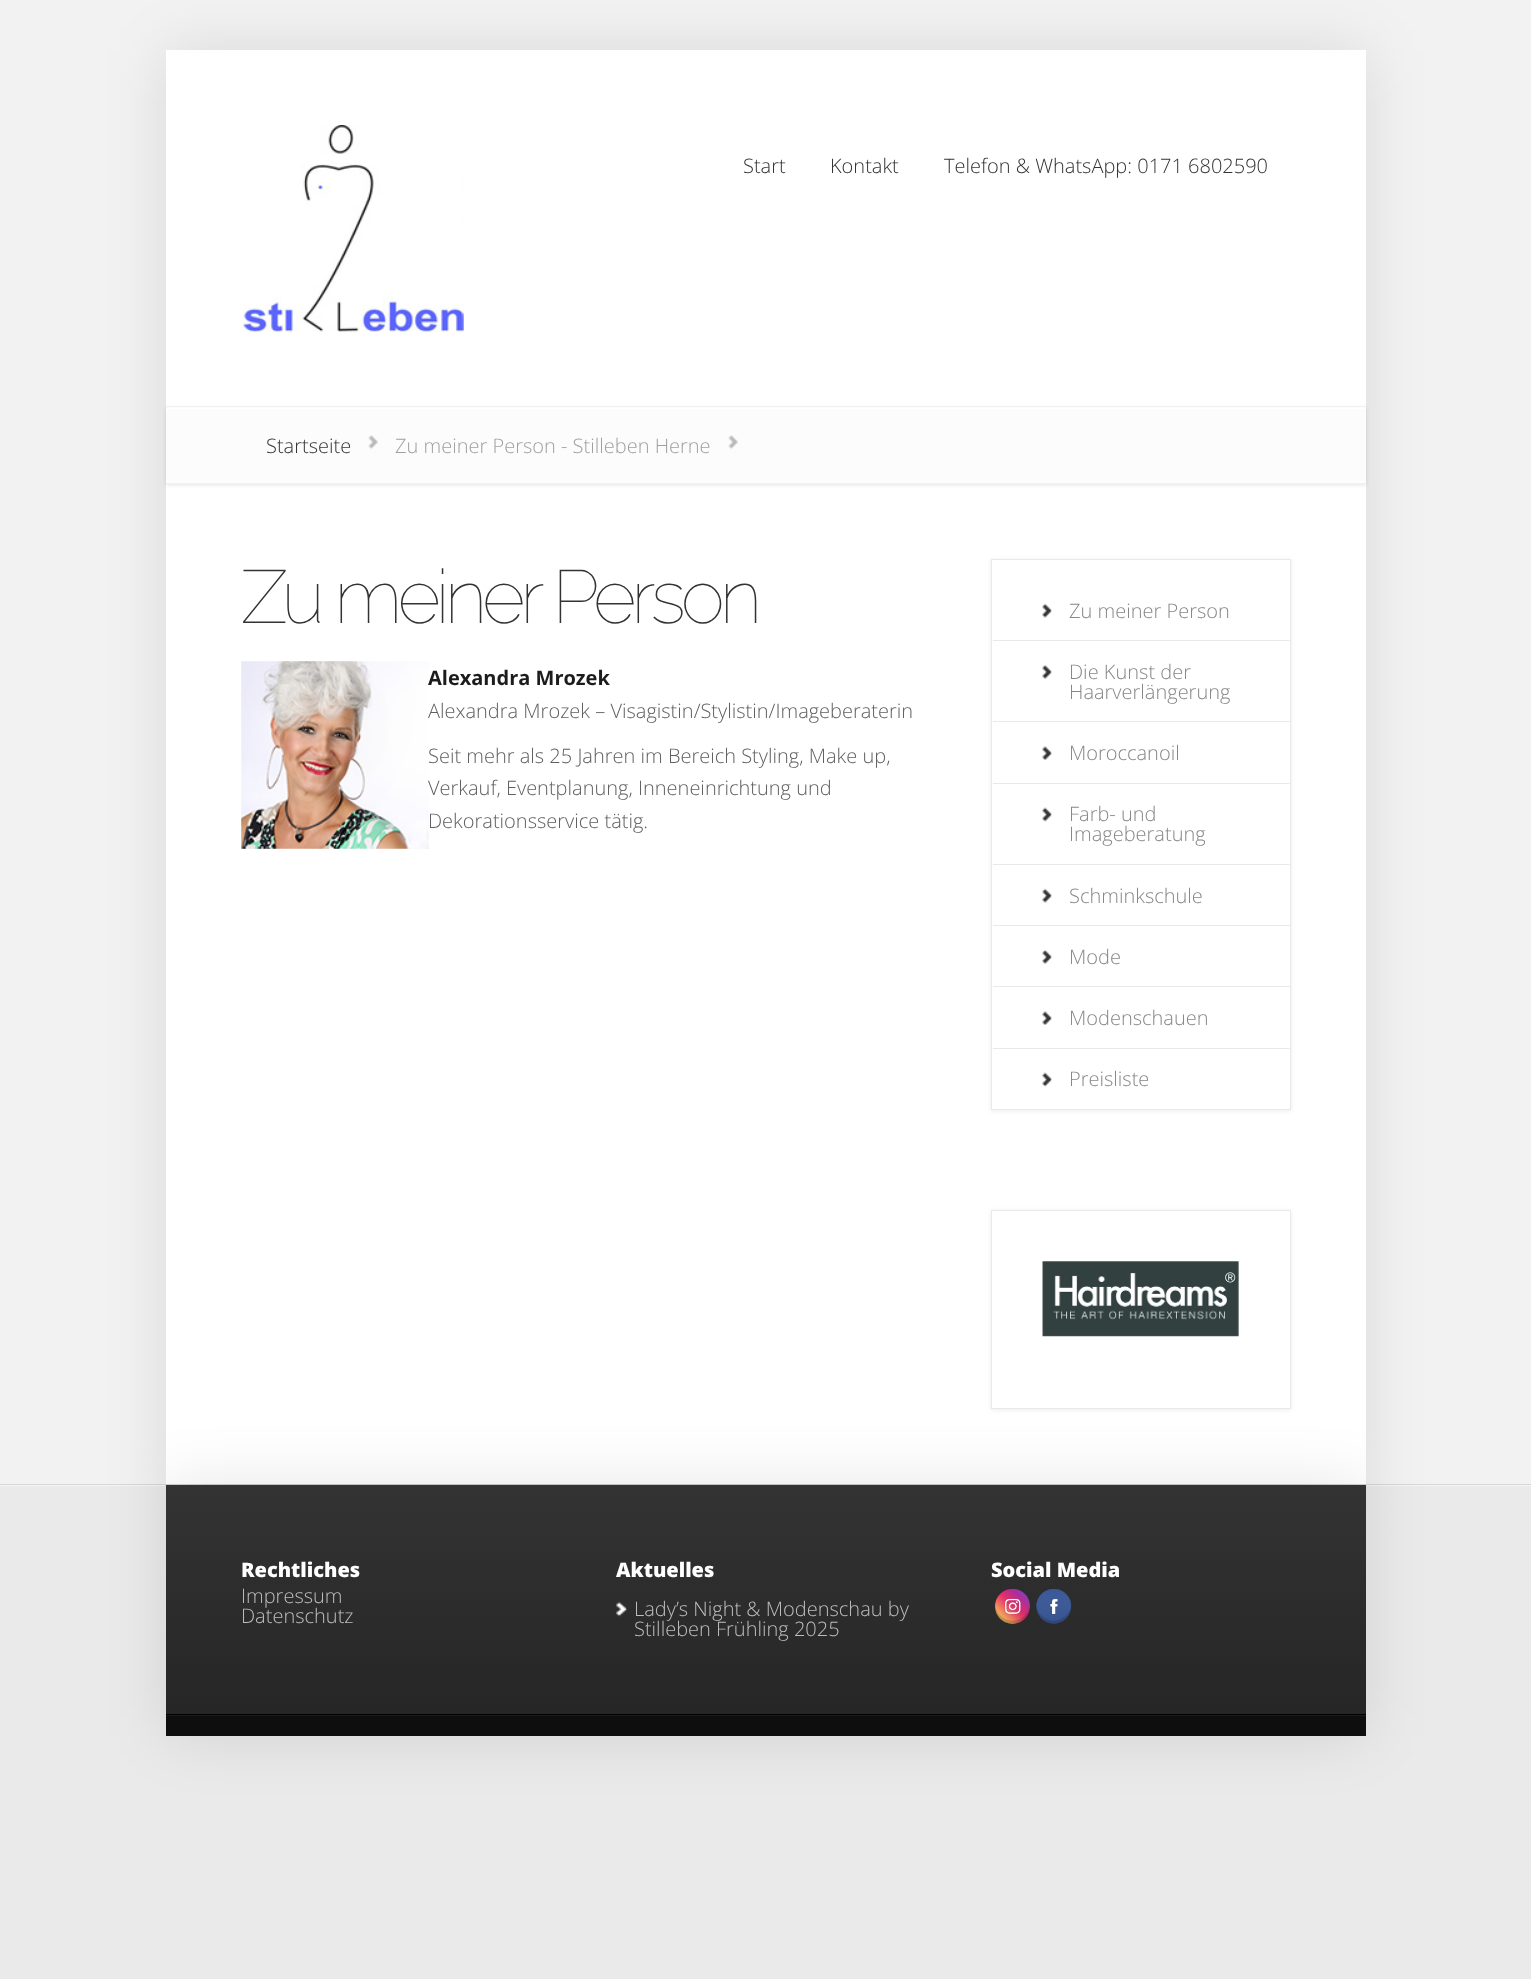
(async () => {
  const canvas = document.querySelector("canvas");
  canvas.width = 1531;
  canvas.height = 1979;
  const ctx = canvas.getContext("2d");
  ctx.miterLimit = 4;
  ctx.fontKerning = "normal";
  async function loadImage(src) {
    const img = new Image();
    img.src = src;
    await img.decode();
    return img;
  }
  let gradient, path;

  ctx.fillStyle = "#eaeaea";
  ctx.fillRect(0, 0, 1531, 1979);
  for (const [x, y, w, h, color] of [
    [0, 0, 1531, 1484, "#f2f2f2"],
    [0, 1485, 1531, 1, "#f6f6f6"],
    [0, 1484, 1531, 1, "#d7d7d7"],
  ]) {
    ctx.fillStyle = color;
    ctx.fillRect(x, y, w, h);
  }
  ctx.fillStyle = "rgba(0, 0, 0, 0.1)";
  ctx.filter = "blur(31px)";
  ctx.beginPath();
  ctx.rect(166, 50, 1200, 1434);
  ctx.fill();
  ctx.filter = "none";
  ctx.fillStyle = "#ffffff";
  ctx.fillRect(166, 50, 1200, 1434);
  ctx.drawImage(await loadImage("img/1.png"), 241, 125, 224, 207);
  ctx.fillStyle = "rgba(0, 0, 0, 0.1)";
  ctx.filter = "blur(2px)";
  ctx.beginPath();
  ctx.rect(166, 408, 1200, 77);
  ctx.fill();
  ctx.filter = "none";
  for (const [x, y, w, h, color] of [
    [166, 407, 1200, 76, "#fcfcfc"],
    [166, 481, 1200, 1, "#ffffff"],
    [166, 408, 1200, 1, "#ffffff"],
    [166, 406, 1200, 1, "#f2f2f2"],
    [166, 483, 1200, 1, "#f2f2f2"],
  ]) {
    ctx.fillStyle = color;
    ctx.fillRect(x, y, w, h);
  }
  ctx.drawImage(await loadImage("img/2.png"), 368, 435, 10, 14);
  ctx.drawImage(await loadImage("img/2.png"), 728, 435, 10, 14);
  ctx.drawImage(await loadImage("img/3.png"), 241, 661, 188, 188);
  ctx.save();
  path = new Path2D("M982 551H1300V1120H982ZM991 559H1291V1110H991Z");
  ctx.clip(path, "evenodd");
  ctx.fillStyle = "rgba(0, 0, 0, 0.07)";
  ctx.filter = "blur(2.5px)";
  ctx.beginPath();
  ctx.rect(991, 560, 300, 551);
  ctx.fill();
  ctx.filter = "none";
  ctx.restore();
  ctx.strokeStyle = "#e9e9e9";
  ctx.strokeRect(991.5, 559.5, 299, 550);
  ctx.drawImage(await loadImage("img/4.png"), 1042, 603, 10, 15);
  ctx.fillStyle = "#e9e9e9";
  ctx.fillRect(993, 640, 297, 1);
  ctx.drawImage(await loadImage("img/5.png"), 1042, 665, 10, 14);
  ctx.fillRect(993, 721, 297, 1);
  ctx.drawImage(await loadImage("img/6.png"), 1042, 746, 10, 14);
  ctx.fillRect(993, 783, 297, 1);
  ctx.drawImage(await loadImage("img/7.png"), 1042, 807, 10, 15);
  ctx.fillRect(993, 864, 297, 1);
  ctx.drawImage(await loadImage("img/4.png"), 1042, 888, 10, 15);
  ctx.fillRect(993, 925, 297, 1);
  ctx.drawImage(await loadImage("img/5.png"), 1042, 950, 10, 14);
  ctx.fillRect(993, 986, 297, 1);
  ctx.drawImage(await loadImage("img/6.png"), 1042, 1011, 10, 14);
  ctx.fillRect(993, 1048, 297, 1);
  ctx.drawImage(await loadImage("img/7.png"), 1042, 1072, 10, 15);
  ctx.save();
  path = new Path2D("M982 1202H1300V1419H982ZM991 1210H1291V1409H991Z");
  ctx.clip(path, "evenodd");
  ctx.fillStyle = "rgba(0, 0, 0, 0.07)";
  ctx.filter = "blur(2.5px)";
  ctx.beginPath();
  ctx.rect(991, 1211, 300, 199);
  ctx.fill();
  ctx.filter = "none";
  ctx.restore();
  ctx.strokeRect(991.5, 1210.5, 299, 198);
  ctx.drawImage(await loadImage("img/8.png"), 1042, 1261, 197, 76);
  ctx.fillStyle = "rgba(0, 0, 0, 0.1)";
  ctx.filter = "blur(31px)";
  ctx.beginPath();
  ctx.rect(166, 1485, 1200, 251);
  ctx.fill();
  ctx.filter = "none";
  gradient = ctx.createLinearGradient(766, 1485, 766, 1714);
  gradient.addColorStop(0, "#333333");
  gradient.addColorStop(1, "#262626");
  ctx.fillStyle = gradient;
  ctx.fillRect(166, 1485, 1200, 229);
  ctx.drawImage(await loadImage("img/9.png"), 616, 1602, 11, 15);
  ctx.drawImage(await loadImage("img/10.png"), 995, 1588, 35, 36);
  ctx.drawImage(await loadImage("img/11.png"), 1036, 1588, 36, 36);
  for (const [x, y, w, h, color] of [
    [166, 1716, 1200, 20, "#0e0e0e"],
    [166, 1715, 1200, 1, "#1c1c1c"],
    [166, 1714, 1200, 1, "#000000"],
  ]) {
    ctx.fillStyle = color;
    ctx.fillRect(x, y, w, h);
  }
  ctx.font = "300 20px Open Sans";
  ctx.fillStyle = "#333333";
  for (const [text, x, y] of [
    ["Start", 743, 173],
    ["Kontakt", 830, 173],
    ["Telefon & WhatsApp: 0171 6802590", 944, 173],
    ["Startseite", 266, 453],
  ]) {
    ctx.fillText(text, x, y);
  }
  ctx.fillStyle = "#9f9f9f";
  ctx.fillText("Zu meiner Person - Stilleben Herne", 395, 453);
  ctx.letterSpacing = "-5px";
  ctx.font = "100 75px Raleway";
  ctx.fillStyle = "#333333";
  ctx.fillText("Zu meiner Person", 241, 623);
  ctx.letterSpacing = "0px";
  ctx.font = "bold 20px Open Sans";
  ctx.fillStyle = "#1c1c1c";
  ctx.fillText("Alexandra Mrozek", 428, 685);
  ctx.font = "300 20px Open Sans";
  ctx.fillStyle = "#606060";
  for (const [text, x, y] of [
    ["Alexandra Mrozek – Visagistin/Stylistin/Imageberaterin", 428, 718],
    ["Seit mehr als 25 Jahren im Bereich Styling, Make up,", 428, 763],
    ["Verkauf, Eventplanung, Inneneinrichtung und", 428, 795],
    ["Dekorationsservice tätig.", 428, 828],
  ]) {
    ctx.fillText(text, x, y);
  }
  ctx.fillStyle = "#878787";
  for (const [text, x, y] of [
    ["Zu meiner Person", 1069, 618],
    ["Die Kunst der", 1069, 679],
    ["Haarverlängerung", 1069, 699],
    ["Moroccanoil", 1069, 760],
    ["Farb- und", 1069, 821],
    ["Imageberatung", 1069, 841],
    ["Schminkschule", 1069, 903],
    ["Mode", 1069, 964],
    ["Modenschauen", 1069, 1025],
    ["Preisliste", 1069, 1086],
  ]) {
    ctx.fillText(text, x, y);
  }
  ctx.font = "800 20px Open Sans";
  ctx.fillStyle = "#ffffff";
  ctx.fillText("Rechtliches", 241, 1577);
  ctx.font = "300 20px Open Sans";
  ctx.fillStyle = "#bebebe";
  ctx.fillText("Impressum", 241, 1603);
  ctx.fillText("Datenschutz", 241, 1623);
  ctx.font = "800 20px Open Sans";
  ctx.fillStyle = "#ffffff";
  ctx.fillText("Aktuelles", 616, 1577);
  ctx.font = "300 20px Open Sans";
  ctx.fillStyle = "#bebebe";
  ctx.fillText("Lady’s Night & Modenschau by", 634, 1616);
  ctx.fillText("Stilleben Frühling 2025", 634, 1636);
  ctx.font = "800 20px Open Sans";
  ctx.fillStyle = "#ffffff";
  ctx.fillText("Social Media", 991, 1577);
})();
